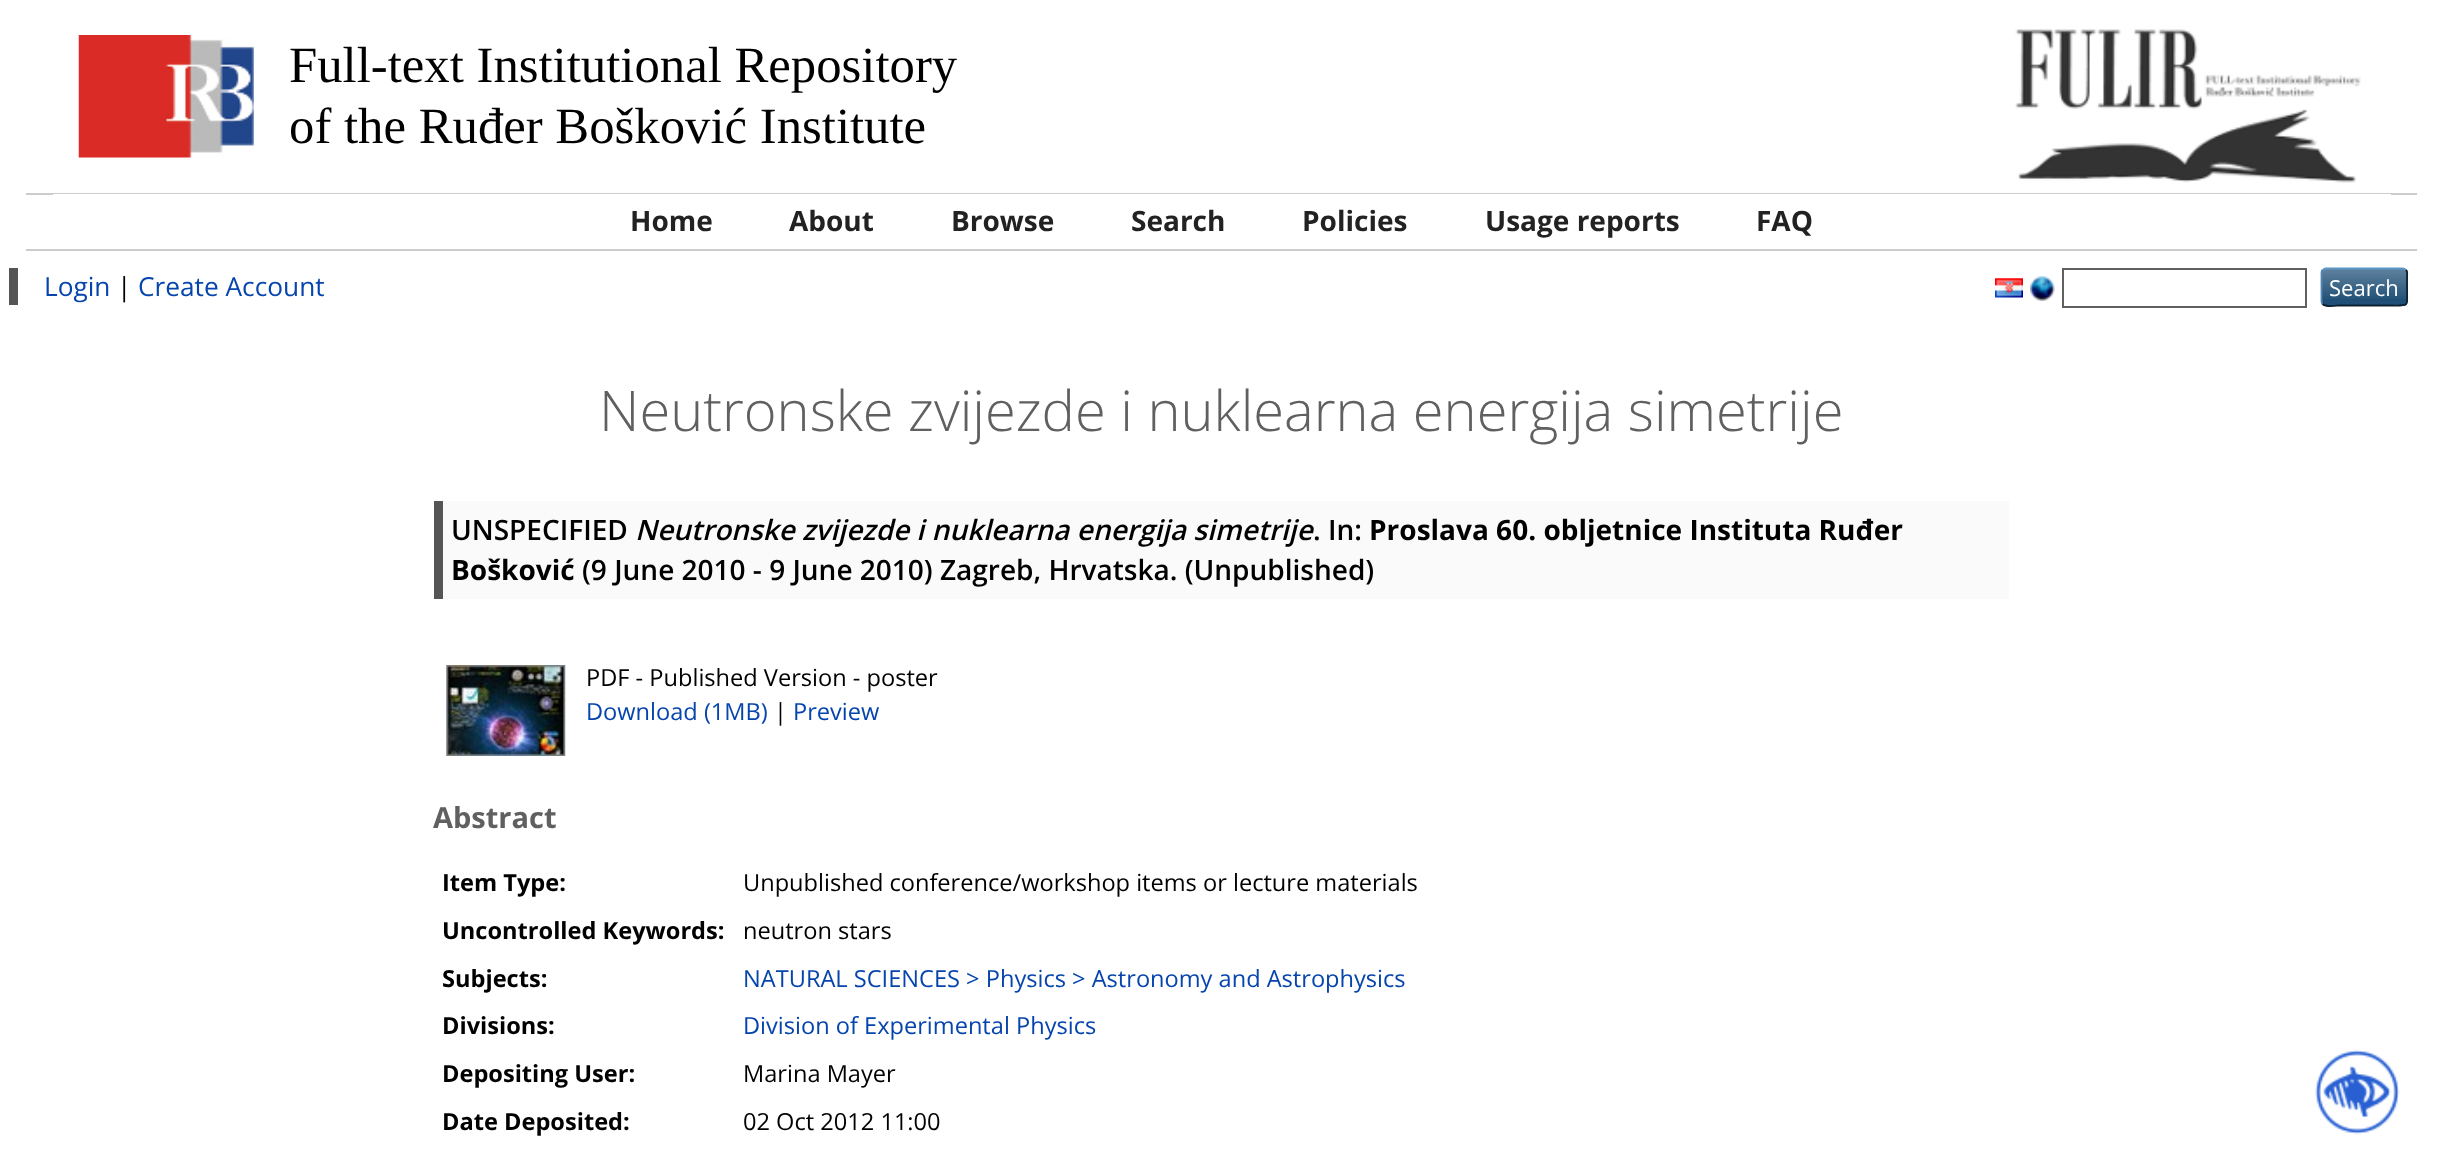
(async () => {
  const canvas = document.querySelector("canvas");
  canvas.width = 2443;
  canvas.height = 1160;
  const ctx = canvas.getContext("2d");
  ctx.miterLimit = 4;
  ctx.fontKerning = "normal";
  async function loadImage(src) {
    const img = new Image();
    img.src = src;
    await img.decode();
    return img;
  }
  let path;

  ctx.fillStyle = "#ffffff";
  ctx.fillRect(0, 0, 2443, 1160);
  ctx.drawImage(await loadImage("img/1.png"), 78, 35, 176, 123);
  ctx.drawImage(await loadImage("img/2.png"), 2015, 29, 346, 154);
  for (const [x, y, w, h, color] of [
    [26, 193, 2391, 2, "#cccccc"],
    [26, 249, 2391, 2, "#cccccc"],
    [53, 194, 2338, 1, "#ffffff"],
    [9, 268, 9, 37, "#555555"],
  ]) {
    ctx.fillStyle = color;
    ctx.fillRect(x, y, w, h);
  }
  ctx.drawImage(await loadImage("img/3.png"), 1995, 278, 28, 20);
  ctx.drawImage(await loadImage("img/4.png"), 2030, 276, 25, 25);
  ctx.strokeStyle = "#606060";
  ctx.lineWidth = 2;
  ctx.strokeRect(2063, 269, 243, 38);
  ctx.fillStyle = "#1f4f76";
  ctx.beginPath();
  ctx.roundRect(2321, 268, 87, 38, 5);
  ctx.fill();
  ctx.drawImage(await loadImage("img/5.png"), 2321, 268, 87, 31);
  path = new Path2D("M2322.5 270L2325.5 268.5H2403L2406 270");
  ctx.strokeStyle = "#5b97c7";
  ctx.lineWidth = 1.8;
  ctx.stroke(path);
  path = new Path2D("M2406 270C2408 272 2407 275.5 2407 277.5V287C2407 307.5 2410.5 305.5 2390 305.5H2338.5C2337 305.5 2326 307.5 2322.5 304");
  ctx.strokeStyle = "#0d2131";
  ctx.stroke(path);
  path = new Path2D("M2322.5 304C2322 303.5 2321.5 302 2321.5 301V273C2321.5 272 2322 270.5 2322.5 270");
  ctx.strokeStyle = "#5287b3";
  ctx.stroke(path);
  ctx.fillStyle = "#fafafa";
  ctx.fillRect(443, 501, 1566, 98);
  ctx.fillStyle = "#555555";
  ctx.fillRect(434, 501, 9, 98);
  ctx.drawImage(await loadImage("img/6.png"), 446, 665, 120, 91);
  ctx.drawImage(await loadImage("img/7.png"), 2315, 1049, 85, 86);
  ctx.font = "50.75px Liberation Serif";
  ctx.fillStyle = "#000000";
  ctx.fillText("Full-text Institutional Repository", 289, 82);
  ctx.fillText("of the Ruđer Bošković Institute", 289, 143);
  ctx.font = "bold 28px Open Sans";
  ctx.fillStyle = "#222222";
  for (const [text, x, y] of [
    ["Home", 630, 231],
    ["About", 789, 231],
    ["Browse", 951, 231],
    ["Search", 1131, 231],
    ["Policies", 1302, 231],
    ["Usage reports", 1485, 231],
    ["FAQ", 1756, 231],
  ]) {
    ctx.fillText(text, x, y);
  }
  ctx.font = "26.25px Open Sans";
  ctx.fillStyle = "#0645ad";
  ctx.fillText("Login", 44, 296);
  ctx.fillStyle = "#000000";
  ctx.fillText("|", 117, 296);
  ctx.fillStyle = "#0645ad";
  ctx.fillText("Create Account", 138, 296);
  ctx.font = "22px Open Sans";
  ctx.fillStyle = "#ffffff";
  ctx.fillText("Search", 2329, 296);
  ctx.font = "300 56px Open Sans";
  ctx.fillStyle = "#606060";
  ctx.fillText("Neutronske zvijezde i nuklearna energija simetrije", 599, 431);
  ctx.font = "600 28px Open Sans";
  ctx.fillStyle = "#000000";
  ctx.fillText("UNSPECIFIED", 451, 540);
  ctx.font = "italic 600 28px Open Sans";
  ctx.fillText("Neutronske zvijezde i nuklearna energija simetrije", 635, 540);
  ctx.font = "600 28px Open Sans";
  ctx.fillText(". In:", 1313, 540);
  ctx.font = "bold 28px Open Sans";
  ctx.fillText("Proslava 60. obljetnice Instituta Ruđer", 1369, 540);
  ctx.fillText("Bošković", 451, 580);
  ctx.font = "600 28px Open Sans";
  ctx.fillText("(9 June 2010 - 9 June 2010) Zagreb, Hrvatska. (Unpublished)", 582, 580);
  ctx.font = "23.6px Open Sans";
  ctx.fillText("PDF - Published Version - poster", 586, 686);
  ctx.fillStyle = "#0645ad";
  ctx.fillText("Download (1MB)", 586, 720);
  ctx.fillStyle = "#000000";
  ctx.fillText("|", 774, 720);
  ctx.fillStyle = "#0645ad";
  ctx.fillText("Preview", 793, 720);
  ctx.font = "bold 29px Open Sans";
  ctx.fillStyle = "#606060";
  ctx.fillText("Abstract", 433, 828);
  ctx.font = "bold 23.6px Open Sans";
  ctx.fillStyle = "#000000";
  ctx.fillText("Item Type:", 442, 891);
  ctx.font = "23.6px Open Sans";
  ctx.fillText("Unpublished conference/workshop items or lecture materials", 743, 891);
  ctx.font = "bold 23.6px Open Sans";
  ctx.fillText("Uncontrolled Keywords:", 442, 939);
  ctx.font = "23.6px Open Sans";
  ctx.fillText("neutron stars", 743, 939);
  ctx.font = "bold 23.6px Open Sans";
  ctx.fillText("Subjects:", 442, 987);
  ctx.font = "23.6px Open Sans";
  ctx.fillStyle = "#0645ad";
  ctx.fillText("NATURAL SCIENCES > Physics > Astronomy and Astrophysics", 743, 987);
  ctx.font = "bold 23.6px Open Sans";
  ctx.fillStyle = "#000000";
  ctx.fillText("Divisions:", 442, 1034);
  ctx.font = "23.6px Open Sans";
  ctx.fillStyle = "#0645ad";
  ctx.fillText("Division of Experimental Physics", 743, 1034);
  ctx.font = "bold 23.6px Open Sans";
  ctx.fillStyle = "#000000";
  ctx.fillText("Depositing User:", 442, 1082);
  ctx.font = "23.6px Open Sans";
  ctx.fillText("Marina Mayer", 743, 1082);
  ctx.font = "bold 23.6px Open Sans";
  ctx.fillText("Date Deposited:", 442, 1130);
  ctx.font = "23.6px Open Sans";
  ctx.fillText("02 Oct 2012 11:00", 743, 1130);
})();
